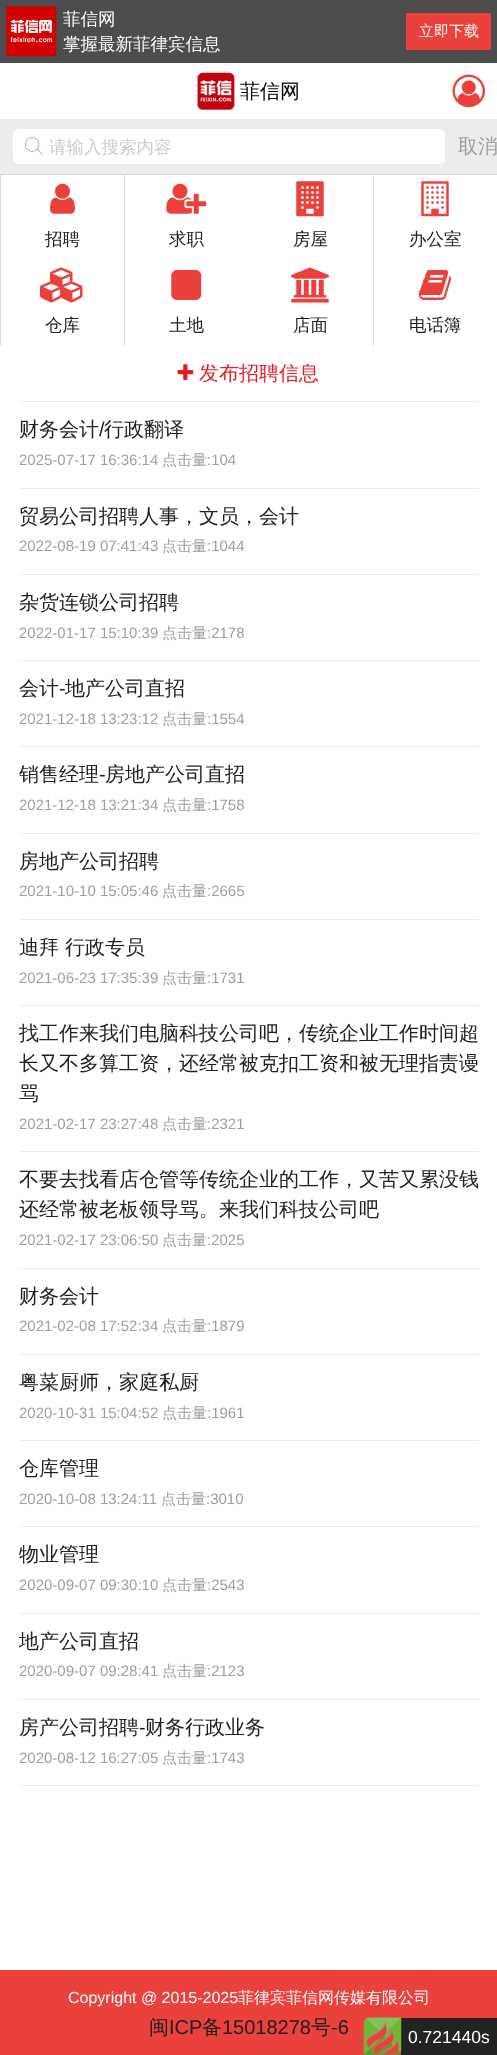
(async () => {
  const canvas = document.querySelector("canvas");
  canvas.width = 497;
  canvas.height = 2055;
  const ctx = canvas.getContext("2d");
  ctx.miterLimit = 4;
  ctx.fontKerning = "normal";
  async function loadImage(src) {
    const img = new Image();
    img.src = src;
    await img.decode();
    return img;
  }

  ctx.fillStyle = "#ffffff";
  ctx.fillRect(0, 0, 497, 2055);
  ctx.fillStyle = "#4d4d4d";
  ctx.fillRect(0, 0, 497, 63);
  ctx.drawImage(await loadImage("img/1.png"), 6, 6, 51, 51);
  ctx.fillStyle = "#ea413c";
  ctx.fillRect(406, 13, 85, 37);
  ctx.drawImage(await loadImage("img/2.png"), 197, 72, 38, 38);
  ctx.drawImage(await loadImage("img/3.png"), 452, 74, 33, 34);
  ctx.fillStyle = "#ebeced";
  ctx.fillRect(0, 119, 497, 55);
  ctx.fillStyle = "#ffffff";
  ctx.beginPath();
  ctx.roundRect(13, 129, 432, 35, 6);
  ctx.fill();
  ctx.drawImage(await loadImage("img/4.png"), 25, 137, 18, 18);
  ctx.fillStyle = "#d9d9d9";
  ctx.beginPath();
  ctx.roundRect(0, 174, 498, 1, 0.5);
  ctx.fill();
  ctx.beginPath();
  ctx.roundRect(0, 174, 1, 172, 0.5);
  ctx.fill();
  ctx.drawImage(await loadImage("img/5.png"), 50, 183, 25, 31);
  ctx.beginPath();
  ctx.roundRect(124, 174, 1, 86, 0.5);
  ctx.fill();
  ctx.drawImage(await loadImage("img/6.png"), 166, 183, 41, 31);
  ctx.drawImage(await loadImage("img/7.png"), 296, 181, 28, 36);
  ctx.beginPath();
  ctx.roundRect(373, 174, 1, 86, 0.5);
  ctx.fill();
  ctx.drawImage(await loadImage("img/8.png"), 421, 181, 28, 36);
  ctx.drawImage(await loadImage("img/9.png"), 40, 267, 43, 36);
  ctx.beginPath();
  ctx.roundRect(124, 260, 1, 86, 0.5);
  ctx.fill();
  ctx.drawImage(await loadImage("img/10.png"), 171, 270, 31, 30);
  ctx.drawImage(await loadImage("img/11.png"), 291, 267, 38, 36);
  ctx.beginPath();
  ctx.roundRect(373, 260, 1, 86, 0.5);
  ctx.fill();
  ctx.drawImage(await loadImage("img/12.png"), 418, 270, 34, 30);
  ctx.fillStyle = "#ebebeb";
  ctx.fillRect(19, 401, 460, 1);
  ctx.drawImage(await loadImage("img/13.png"), 177, 364, 17, 16);
  for (const [x, y, w, h, color] of [
    [19, 488, 460, 1, "#ebebeb"],
    [19, 574, 460, 1, "#ebebeb"],
    [19, 660, 460, 1, "#ebebeb"],
    [19, 746, 460, 1, "#ebebeb"],
    [19, 833, 460, 1, "#ebebeb"],
    [19, 919, 460, 1, "#ebebeb"],
    [19, 1005, 460, 1, "#ebebeb"],
    [19, 1151, 460, 1, "#ebebeb"],
    [19, 1268, 460, 1, "#ebebeb"],
    [19, 1354, 460, 1, "#ebebeb"],
    [19, 1440, 460, 1, "#ebebeb"],
    [19, 1526, 460, 1, "#ebebeb"],
    [19, 1613, 460, 1, "#ebebeb"],
    [19, 1699, 460, 1, "#ebebeb"],
    [19, 1785, 460, 1, "#ebebeb"],
    [0, 1970, 497, 85, "#ea413c"],
    [401, 2018, 96, 37, "#232323"],
  ]) {
    ctx.fillStyle = color;
    ctx.fillRect(x, y, w, h);
  }
  ctx.drawImage(await loadImage("img/14.png"), 363, 2017, 39, 38);
  ctx.font = "500 17.5px WenQuanYi Zen Hei";
  ctx.fillStyle = "#ffffff";
  ctx.fillText("菲信网", 63, 25);
  ctx.fillText("掌握最新菲律宾信息", 63, 50);
  ctx.font = "500 15px WenQuanYi Zen Hei";
  ctx.fillText("立即下载", 419, 36);
  ctx.font = "500 20px WenQuanYi Zen Hei";
  ctx.fillStyle = "#000000";
  ctx.fillText("菲信网", 240, 98);
  ctx.font = "500 17.5px WenQuanYi Zen Hei";
  ctx.fillStyle = "#cccccc";
  ctx.fillText("请输入搜索内容", 49, 153);
  ctx.font = "500 20px WenQuanYi Zen Hei";
  ctx.fillStyle = "#9e9e9e";
  ctx.fillText("取消", 458, 153);
  ctx.font = "500 17.5px WenQuanYi Zen Hei";
  ctx.fillStyle = "#212121";
  for (const [text, x, y] of [
    ["招聘", 45, 245],
    ["求职", 169, 245],
    ["房屋", 293, 245],
    ["办公室", 409, 245],
    ["仓库", 45, 331],
    ["土地", 169, 331],
    ["店面", 293, 331],
    ["电话簿", 409, 331],
  ]) {
    ctx.fillText(text, x, y);
  }
  ctx.font = "500 20px WenQuanYi Zen Hei";
  ctx.fillStyle = "#e51c23";
  ctx.fillText("发布招聘信息", 199, 380);
  ctx.fillStyle = "#212121";
  ctx.fillText("财务会计", 19, 436);
  ctx.font = "20px Liberation Sans";
  ctx.fillText("/", 99, 436);
  ctx.font = "500 20px WenQuanYi Zen Hei";
  ctx.fillText("行政翻译", 104, 436);
  ctx.font = "15px Liberation Sans";
  ctx.fillStyle = "#9e9e9e";
  ctx.fillText("2025-07-17 16:36:14", 19, 465);
  ctx.font = "500 15px WenQuanYi Zen Hei";
  ctx.fillText("点击量", 162, 465);
  ctx.font = "15px Liberation Sans";
  ctx.fillText(":104", 207, 465);
  ctx.font = "500 20px WenQuanYi Zen Hei";
  ctx.fillStyle = "#212121";
  ctx.fillText("贸易公司招聘人事，文员，会计", 19, 523);
  ctx.font = "15px Liberation Sans";
  ctx.fillStyle = "#9e9e9e";
  ctx.fillText("2022-08-19 07:41:43", 19, 551);
  ctx.font = "500 15px WenQuanYi Zen Hei";
  ctx.fillText("点击量", 162, 551);
  ctx.font = "15px Liberation Sans";
  ctx.fillText(":1044", 207, 551);
  ctx.font = "500 20px WenQuanYi Zen Hei";
  ctx.fillStyle = "#212121";
  ctx.fillText("杂货连锁公司招聘", 19, 609);
  ctx.font = "15px Liberation Sans";
  ctx.fillStyle = "#9e9e9e";
  ctx.fillText("2022-01-17 15:10:39", 19, 638);
  ctx.font = "500 15px WenQuanYi Zen Hei";
  ctx.fillText("点击量", 162, 638);
  ctx.font = "15px Liberation Sans";
  ctx.fillText(":2178", 207, 638);
  ctx.font = "500 20px WenQuanYi Zen Hei";
  ctx.fillStyle = "#212121";
  ctx.fillText("会计", 19, 695);
  ctx.font = "20px Liberation Sans";
  ctx.fillText("-", 59, 695);
  ctx.font = "500 20px WenQuanYi Zen Hei";
  ctx.fillText("地产公司直招", 65, 695);
  ctx.font = "15px Liberation Sans";
  ctx.fillStyle = "#9e9e9e";
  ctx.fillText("2021-12-18 13:23:12", 19, 724);
  ctx.font = "500 15px WenQuanYi Zen Hei";
  ctx.fillText("点击量", 162, 724);
  ctx.font = "15px Liberation Sans";
  ctx.fillText(":1554", 207, 724);
  ctx.font = "500 20px WenQuanYi Zen Hei";
  ctx.fillStyle = "#212121";
  ctx.fillText("销售经理", 19, 781);
  ctx.font = "20px Liberation Sans";
  ctx.fillText("-", 99, 781);
  ctx.font = "500 20px WenQuanYi Zen Hei";
  ctx.fillText("房地产公司直招", 105, 781);
  ctx.font = "15px Liberation Sans";
  ctx.fillStyle = "#9e9e9e";
  ctx.fillText("2021-12-18 13:21:34", 19, 810);
  ctx.font = "500 15px WenQuanYi Zen Hei";
  ctx.fillText("点击量", 162, 810);
  ctx.font = "15px Liberation Sans";
  ctx.fillText(":1758", 207, 810);
  ctx.font = "500 20px WenQuanYi Zen Hei";
  ctx.fillStyle = "#212121";
  ctx.fillText("房地产公司招聘", 19, 868);
  ctx.font = "15px Liberation Sans";
  ctx.fillStyle = "#9e9e9e";
  ctx.fillText("2021-10-10 15:05:46", 19, 896);
  ctx.font = "500 15px WenQuanYi Zen Hei";
  ctx.fillText("点击量", 162, 896);
  ctx.font = "15px Liberation Sans";
  ctx.fillText(":2665", 207, 896);
  ctx.font = "500 20px WenQuanYi Zen Hei";
  ctx.fillStyle = "#212121";
  ctx.fillText("迪拜 行政专员", 19, 954);
  ctx.font = "15px Liberation Sans";
  ctx.fillStyle = "#9e9e9e";
  ctx.fillText("2021-06-23 17:35:39", 19, 983);
  ctx.font = "500 15px WenQuanYi Zen Hei";
  ctx.fillText("点击量", 162, 983);
  ctx.font = "15px Liberation Sans";
  ctx.fillText(":1731", 207, 983);
  ctx.font = "500 20px WenQuanYi Zen Hei";
  ctx.fillStyle = "#212121";
  for (const [text, x, y] of [
    ["找工作来我们电脑科技公司吧，传统企业工作时间超", 19, 1040],
    ["长又不多算工资，还经常被克扣工资和被无理指责谩", 19, 1070],
    ["骂", 19, 1100],
  ]) {
    ctx.fillText(text, x, y);
  }
  ctx.font = "15px Liberation Sans";
  ctx.fillStyle = "#9e9e9e";
  ctx.fillText("2021-02-17 23:27:48", 19, 1129);
  ctx.font = "500 15px WenQuanYi Zen Hei";
  ctx.fillText("点击量", 162, 1129);
  ctx.font = "15px Liberation Sans";
  ctx.fillText(":2321", 207, 1129);
  ctx.font = "500 20px WenQuanYi Zen Hei";
  ctx.fillStyle = "#212121";
  ctx.fillText("不要去找看店仓管等传统企业的工作，又苦又累没钱", 19, 1186);
  ctx.fillText("还经常被老板领导骂。来我们科技公司吧", 19, 1216);
  ctx.font = "15px Liberation Sans";
  ctx.fillStyle = "#9e9e9e";
  ctx.fillText("2021-02-17 23:06:50", 19, 1245);
  ctx.font = "500 15px WenQuanYi Zen Hei";
  ctx.fillText("点击量", 162, 1245);
  ctx.font = "15px Liberation Sans";
  ctx.fillText(":2025", 207, 1245);
  ctx.font = "500 20px WenQuanYi Zen Hei";
  ctx.fillStyle = "#212121";
  ctx.fillText("财务会计", 19, 1303);
  ctx.font = "15px Liberation Sans";
  ctx.fillStyle = "#9e9e9e";
  ctx.fillText("2021-02-08 17:52:34", 19, 1331);
  ctx.font = "500 15px WenQuanYi Zen Hei";
  ctx.fillText("点击量", 162, 1331);
  ctx.font = "15px Liberation Sans";
  ctx.fillText(":1879", 207, 1331);
  ctx.font = "500 20px WenQuanYi Zen Hei";
  ctx.fillStyle = "#212121";
  ctx.fillText("粤菜厨师，家庭私厨", 19, 1389);
  ctx.font = "15px Liberation Sans";
  ctx.fillStyle = "#9e9e9e";
  ctx.fillText("2020-10-31 15:04:52", 19, 1418);
  ctx.font = "500 15px WenQuanYi Zen Hei";
  ctx.fillText("点击量", 162, 1418);
  ctx.font = "15px Liberation Sans";
  ctx.fillText(":1961", 207, 1418);
  ctx.font = "500 20px WenQuanYi Zen Hei";
  ctx.fillStyle = "#212121";
  ctx.fillText("仓库管理", 19, 1475);
  ctx.font = "15px Liberation Sans";
  ctx.fillStyle = "#9e9e9e";
  ctx.fillText("2020-10-08 13:24:11", 19, 1504);
  ctx.font = "500 15px WenQuanYi Zen Hei";
  ctx.fillText("点击量", 161, 1504);
  ctx.font = "15px Liberation Sans";
  ctx.fillText(":3010", 206, 1504);
  ctx.font = "500 20px WenQuanYi Zen Hei";
  ctx.fillStyle = "#212121";
  ctx.fillText("物业管理", 19, 1561);
  ctx.font = "15px Liberation Sans";
  ctx.fillStyle = "#9e9e9e";
  ctx.fillText("2020-09-07 09:30:10", 19, 1590);
  ctx.font = "500 15px WenQuanYi Zen Hei";
  ctx.fillText("点击量", 162, 1590);
  ctx.font = "15px Liberation Sans";
  ctx.fillText(":2543", 207, 1590);
  ctx.font = "500 20px WenQuanYi Zen Hei";
  ctx.fillStyle = "#212121";
  ctx.fillText("地产公司直招", 19, 1648);
  ctx.font = "15px Liberation Sans";
  ctx.fillStyle = "#9e9e9e";
  ctx.fillText("2020-09-07 09:28:41", 19, 1676);
  ctx.font = "500 15px WenQuanYi Zen Hei";
  ctx.fillText("点击量", 162, 1676);
  ctx.font = "15px Liberation Sans";
  ctx.fillText(":2123", 207, 1676);
  ctx.font = "500 20px WenQuanYi Zen Hei";
  ctx.fillStyle = "#212121";
  ctx.fillText("房产公司招聘", 19, 1734);
  ctx.font = "20px Liberation Sans";
  ctx.fillText("-", 139, 1734);
  ctx.font = "500 20px WenQuanYi Zen Hei";
  ctx.fillText("财务行政业务", 145, 1734);
  ctx.font = "15px Liberation Sans";
  ctx.fillStyle = "#9e9e9e";
  ctx.fillText("2020-08-12 16:27:05", 19, 1763);
  ctx.font = "500 15px WenQuanYi Zen Hei";
  ctx.fillText("点击量", 162, 1763);
  ctx.font = "15px Liberation Sans";
  ctx.fillText(":1743", 207, 1763);
  ctx.font = "16px Liberation Sans";
  ctx.fillStyle = "#ffffff";
  ctx.fillText("Copyright @ 2015-2025", 68, 2003);
  ctx.font = "500 16px WenQuanYi Zen Hei";
  ctx.fillText("菲律宾菲信网传媒有限公司", 238, 2003);
  ctx.font = "500 20px WenQuanYi Zen Hei";
  ctx.fillStyle = "#212121";
  ctx.fillText("闽", 149, 2034);
  ctx.font = "20px Liberation Sans";
  ctx.fillText("ICP", 169, 2034);
  ctx.font = "500 20px WenQuanYi Zen Hei";
  ctx.fillText("备", 202, 2034);
  ctx.font = "20px Liberation Sans";
  ctx.fillText("15018278", 222, 2034);
  ctx.font = "500 20px WenQuanYi Zen Hei";
  ctx.fillText("号", 311, 2034);
  ctx.font = "20px Liberation Sans";
  ctx.fillText("-6", 331, 2034);
  ctx.font = "17.5px Liberation Sans";
  ctx.fillStyle = "#ffffff";
  ctx.fillText("0.721440s", 408, 2043);
})();
